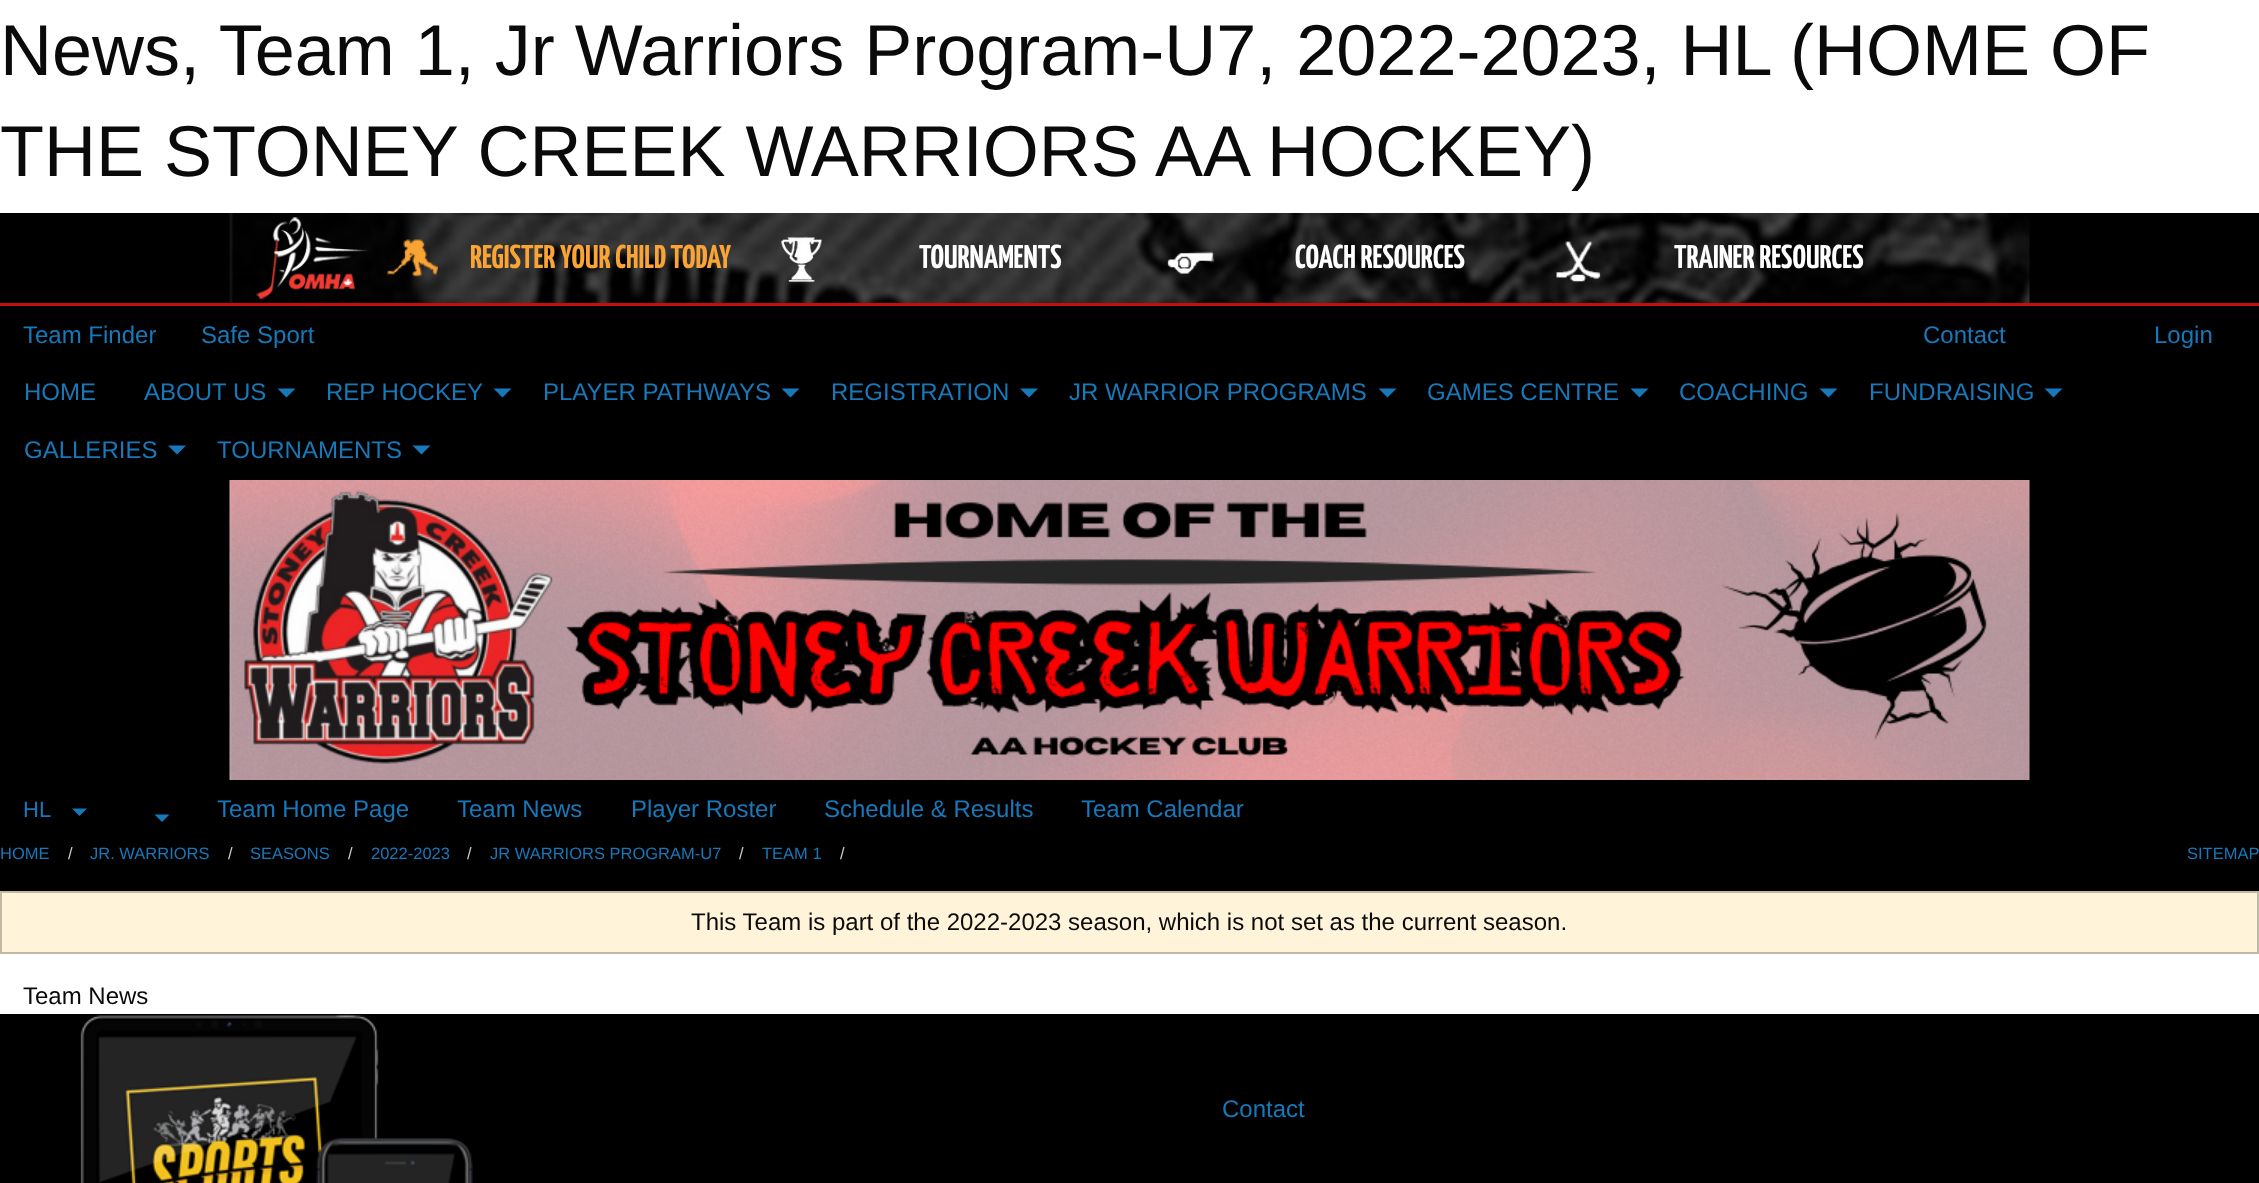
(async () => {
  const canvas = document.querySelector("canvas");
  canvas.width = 2259;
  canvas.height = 1183;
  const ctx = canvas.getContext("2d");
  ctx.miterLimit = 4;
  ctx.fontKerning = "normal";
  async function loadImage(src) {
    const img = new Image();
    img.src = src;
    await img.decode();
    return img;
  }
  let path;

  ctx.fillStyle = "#ffffff";
  ctx.fillRect(0, 0, 2259, 1183);
  ctx.fillStyle = "#000000";
  ctx.fillRect(0, 213, 2259, 90);
  ctx.fillStyle = "#c60c0c";
  ctx.fillRect(0, 303, 2259, 3);
  ctx.drawImage(await loadImage("img/1.png"), 229, 213, 1801, 90);
  ctx.drawImage(await loadImage("img/2.png"), 256, 217, 113, 82);
  ctx.drawImage(await loadImage("img/3.png"), 387, 239, 51, 38);
  ctx.drawImage(await loadImage("img/4.png"), 780, 236, 43, 47);
  ctx.drawImage(await loadImage("img/5.png"), 1167, 251, 48, 23);
  ctx.drawImage(await loadImage("img/6.png"), 1556, 241, 45, 42);
  ctx.fillStyle = "#000000";
  ctx.fillRect(0, 306, 2259, 877);
  ctx.fillStyle = "#1779ba";
  path = new Path2D("M277.5 388.5H295.5L286.5 397.5Z");
  ctx.fill(path);
  path = new Path2D("M493.5 388.5H511.5L502.5 397.5Z");
  ctx.fill(path);
  path = new Path2D("M781.5 388.5H799.5L790.5 397.5Z");
  ctx.fill(path);
  path = new Path2D("M1020 388.5H1038L1029 397.5Z");
  ctx.fill(path);
  path = new Path2D("M1378.5 388.5H1396.5L1387.5 397.5Z");
  ctx.fill(path);
  path = new Path2D("M1630.5 388.5H1648.5L1639.5 397.5Z");
  ctx.fill(path);
  path = new Path2D("M1819.5 388.5H1837.5L1828.5 397.5Z");
  ctx.fill(path);
  path = new Path2D("M2044.5 388.5H2062.5L2053.5 397.5Z");
  ctx.fill(path);
  path = new Path2D("M168 445.5H186L177 454.5Z");
  ctx.fill(path);
  path = new Path2D("M412.5 445.5H430.5L421.5 454.5Z");
  ctx.fill(path);
  ctx.drawImage(await loadImage("img/7.png"), 229, 480, 1801, 300);
  path = new Path2D("M72 808.5H87L79.5 816Z");
  ctx.fill(path);
  path = new Path2D("M154.5 814.5H169.5L162 822Z");
  ctx.fill(path);
  ctx.fillStyle = "#ffffff";
  ctx.fillRect(0, 954, 2259, 60);
  ctx.fillStyle = "#fff3d9";
  ctx.beginPath();
  ctx.rect(1, 892, 2257, 61);
  ctx.fill();
  ctx.strokeStyle = "#c2b9a5";
  ctx.lineWidth = 2;
  ctx.stroke();
  ctx.drawImage(await loadImage("img/8.png"), 80, 1014, 393, 169);
  ctx.font = "72px Liberation Sans";
  ctx.fillStyle = "#0a0a0a";
  ctx.fillText("News, Team 1, Jr Warriors Program-U7, 2022-2023, HL (HOME OF", 0, 75);
  ctx.fillText("THE STONEY CREEK WARRIORS AA HOCKEY)", 0, 176);
  ctx.font = "200 33px Yanone Kaffeesatz";
  ctx.fillStyle = "#f9a435";
  ctx.fillText("REGISTER YOUR CHILD TODAY", 470, 268);
  ctx.fillStyle = "#ffffff";
  for (const [text, x, y] of [
    ["TOURNAMENTS", 919, 268],
    ["COACH RESOURCES", 1295, 268],
    ["TRAINER RESOURCES", 1674, 268],
  ]) {
    ctx.fillText(text, x, y);
  }
  ctx.font = "24px Liberation Sans";
  ctx.fillStyle = "#1779ba";
  for (const [text, x, y] of [
    ["Team Finder", 23, 343],
    ["Safe Sport", 201, 343],
    ["Contact", 1923, 343],
    ["Login", 2154, 343],
    ["HOME", 24, 400],
    ["ABOUT US", 144, 400],
    ["REP HOCKEY", 326, 400],
    ["PLAYER PATHWAYS", 543, 400],
    ["REGISTRATION", 831, 400],
    ["JR WARRIOR PROGRAMS", 1069, 400],
    ["GAMES CENTRE", 1427, 400],
    ["COACHING", 1679, 400],
    ["FUNDRAISING", 1869, 400],
    ["GALLERIES", 24, 458],
    ["TOURNAMENTS", 217, 458],
  ]) {
    ctx.fillText(text, x, y);
  }
  ctx.font = "22px Liberation Sans";
  ctx.fillText("HL", 23, 817);
  ctx.font = "24px Liberation Sans";
  for (const [text, x, y] of [
    ["Team Home Page", 217, 817],
    ["Team News", 457, 817],
    ["Player Roster", 631, 817],
    ["Schedule & Results", 824, 817],
    ["Team Calendar", 1081, 817],
  ]) {
    ctx.fillText(text, x, y);
  }
  ctx.font = "16.5px Liberation Sans";
  ctx.fillText("HOME", 0, 859);
  ctx.fillStyle = "#cacaca";
  ctx.fillText("/", 68, 859);
  ctx.fillStyle = "#1779ba";
  ctx.fillText("JR. WARRIORS", 90, 859);
  ctx.fillStyle = "#cacaca";
  ctx.fillText("/", 228, 859);
  ctx.fillStyle = "#1779ba";
  ctx.fillText("SEASONS", 250, 859);
  ctx.fillStyle = "#cacaca";
  ctx.fillText("/", 348, 859);
  ctx.fillStyle = "#1779ba";
  ctx.fillText("2022-2023", 371, 859);
  ctx.fillStyle = "#cacaca";
  ctx.fillText("/", 467, 859);
  ctx.fillStyle = "#1779ba";
  ctx.fillText("JR WARRIORS PROGRAM-U7", 490, 859);
  ctx.fillStyle = "#cacaca";
  ctx.fillText("/", 739, 859);
  ctx.fillStyle = "#1779ba";
  ctx.fillText("TEAM 1", 762, 859);
  ctx.fillStyle = "#cacaca";
  ctx.fillText("/", 840, 859);
  ctx.fillStyle = "#1779ba";
  ctx.fillText("SITEMAP", 2187, 859);
  ctx.font = "24px Liberation Sans";
  ctx.fillStyle = "#0a0a0a";
  ctx.fillText("This Team is part of the 2022-2023 season, which is not set as the current season.", 691, 930);
  ctx.fillText("Team News", 23, 1004);
  ctx.fillStyle = "#1779ba";
  ctx.fillText("Contact", 1222, 1117);
})();
